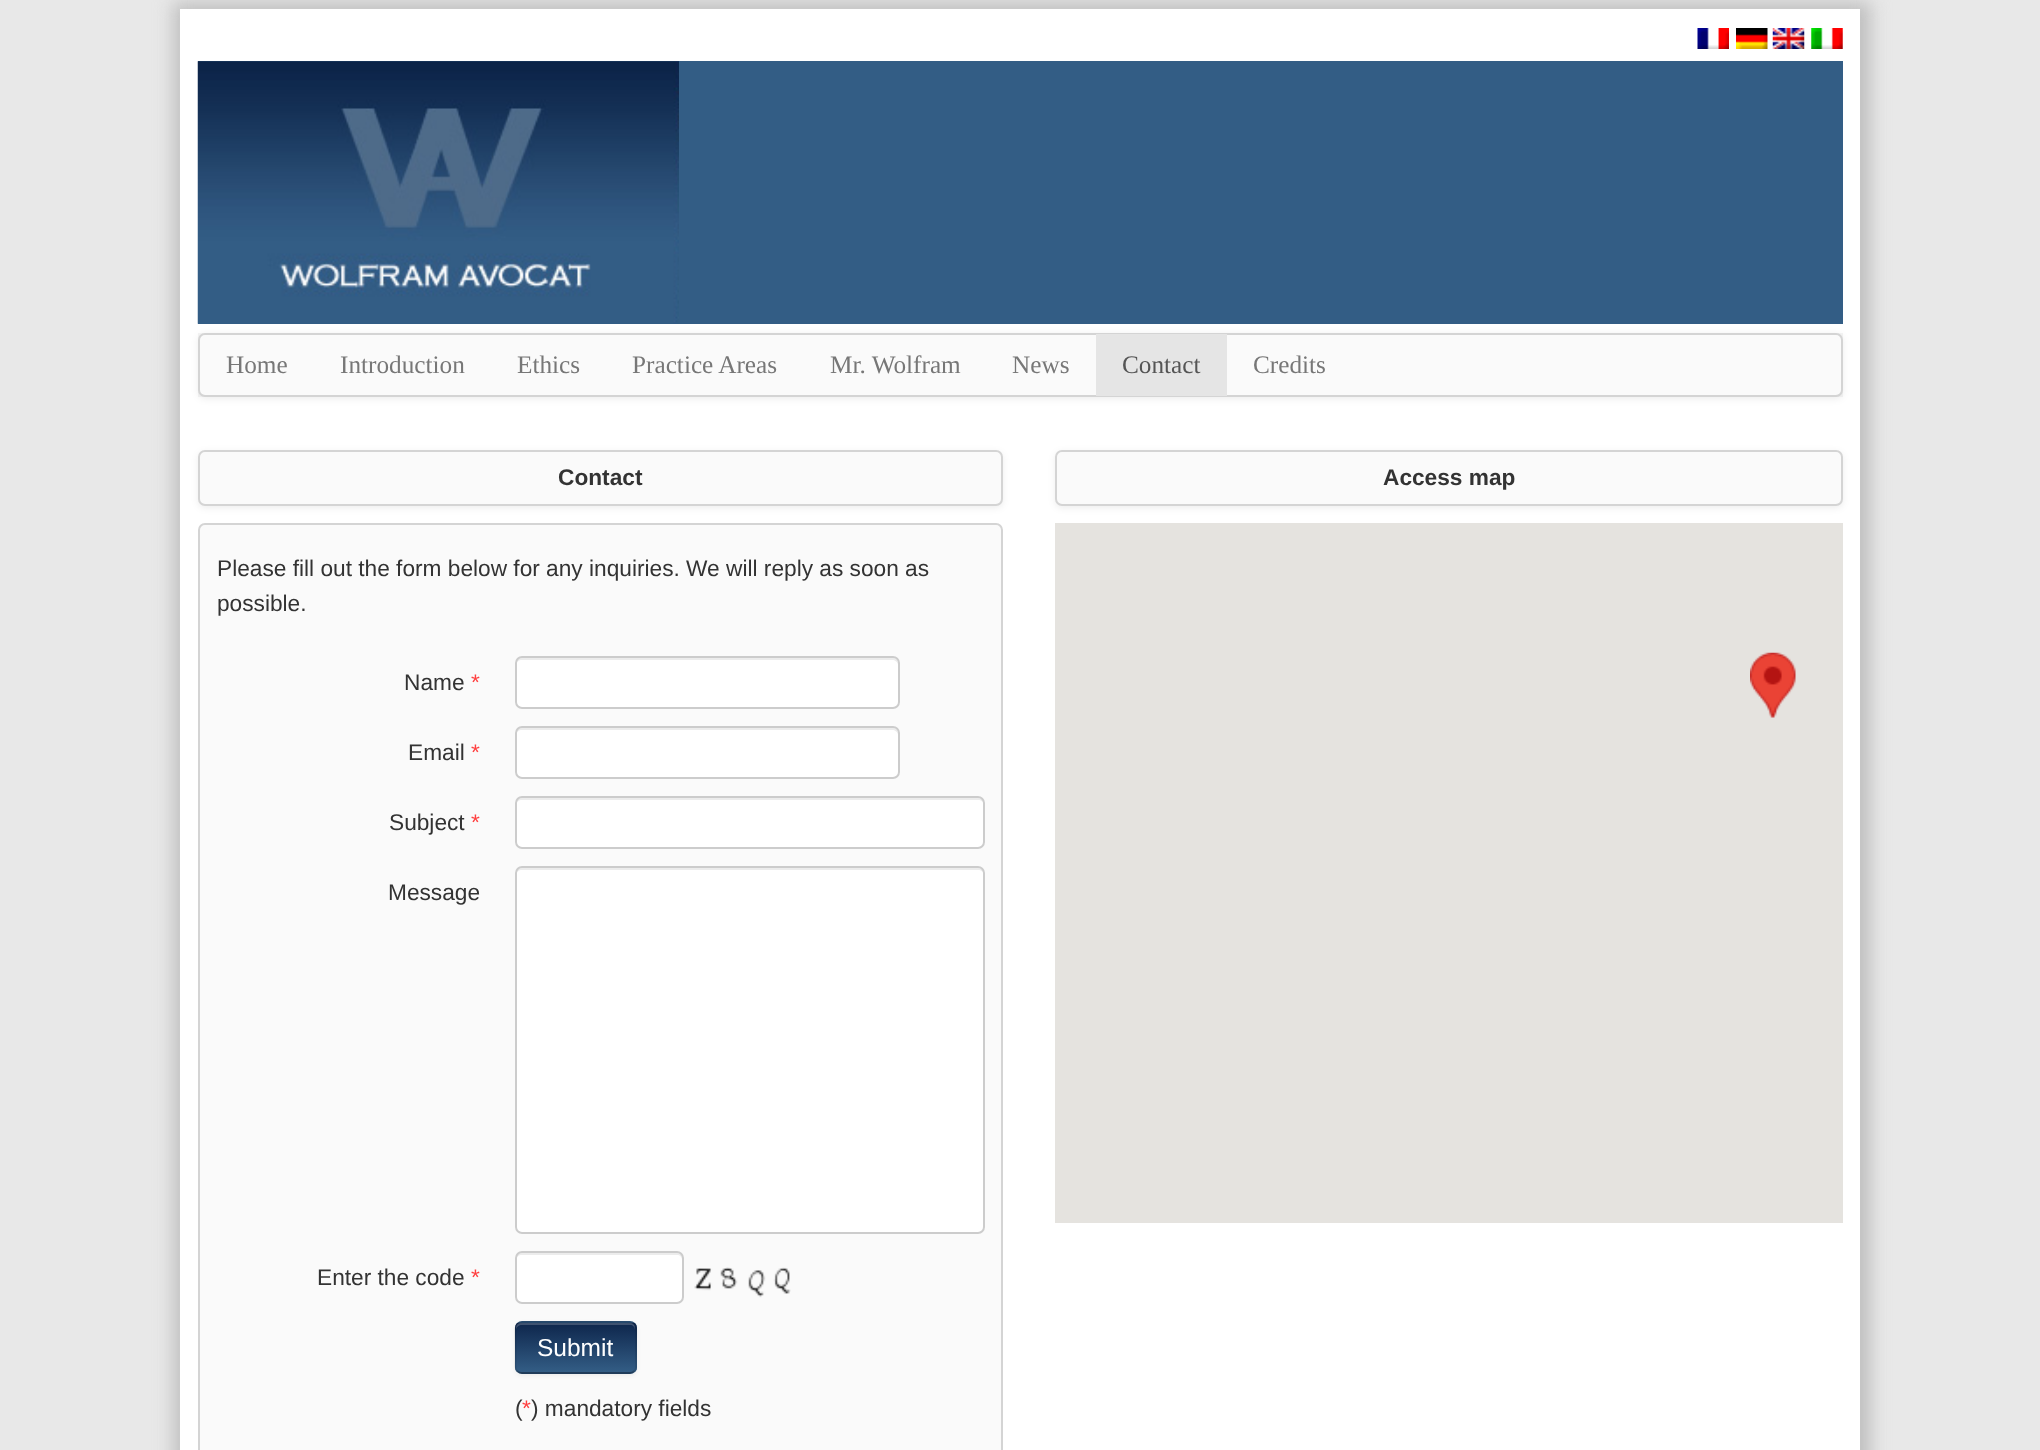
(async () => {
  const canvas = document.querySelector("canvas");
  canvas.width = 2040;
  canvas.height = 1450;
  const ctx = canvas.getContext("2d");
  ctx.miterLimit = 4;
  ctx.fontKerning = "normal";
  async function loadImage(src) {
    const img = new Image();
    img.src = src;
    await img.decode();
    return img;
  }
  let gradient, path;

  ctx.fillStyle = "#e8e8e8";
  ctx.fillRect(0, 0, 2040, 1450);
  ctx.fillStyle = "#c0c0c0";
  ctx.filter = "blur(9px)";
  ctx.beginPath();
  ctx.rect(173, 2, 1698, 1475);
  ctx.fill();
  ctx.filter = "none";
  ctx.fillStyle = "#ffffff";
  ctx.fillRect(180, 9, 1680, 1441);
  ctx.drawImage(await loadImage("img/1.png"), 1697, 28, 32, 21);
  ctx.drawImage(await loadImage("img/2.png"), 1736, 28, 32, 21);
  ctx.drawImage(await loadImage("img/3.png"), 1772, 28, 33, 21);
  ctx.drawImage(await loadImage("img/4.png"), 1811, 28, 32, 21);
  ctx.fillStyle = "#f5f5f5";
  ctx.fillRect(198, 333, 1645, 64);
  ctx.fillStyle = "rgba(0, 0, 0, 0.07)";
  ctx.filter = "blur(3.5px)";
  ctx.beginPath();
  ctx.roundRect(198, 334, 1645, 65, 7);
  ctx.fill();
  ctx.filter = "none";
  ctx.fillStyle = "#335d85";
  ctx.fillRect(198, 61, 1645, 263);
  ctx.drawImage(await loadImage("img/5.png"), 197, 61, 482, 263);
  ctx.fillStyle = "#fafafa";
  ctx.beginPath();
  ctx.roundRect(199, 334, 1643, 62, 6);
  ctx.fill();
  ctx.strokeStyle = "#d4d4d4";
  ctx.lineWidth = 2;
  ctx.stroke();
  ctx.fillStyle = "#e5e5e5";
  ctx.fillRect(1096, 334, 131, 62);
  ctx.fillStyle = "rgba(0, 0, 0, 0.07)";
  ctx.filter = "blur(3.5px)";
  ctx.beginPath();
  ctx.roundRect(198, 452, 805, 56, 7);
  ctx.fill();
  ctx.filter = "none";
  ctx.fillStyle = "#fafafa";
  ctx.beginPath();
  ctx.roundRect(199, 451, 803, 54, 6);
  ctx.fill();
  ctx.stroke();
  ctx.beginPath();
  ctx.roundRect(199, 524, 803, 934, 6);
  ctx.fill();
  ctx.stroke();
  ctx.fillStyle = "#ffffff";
  ctx.beginPath();
  ctx.roundRect(515, 656, 385, 53, 7);
  ctx.fill();
  ctx.fillStyle = "#ececec";
  path = new Path2D("M522 660H892C895 660 898 662 898 665V663C898 660 896 658 893 658H521C518 658 516 660 516 663V665C516 662 519 660 522 660Z");
  ctx.fill(path);
  ctx.beginPath();
  ctx.roundRect(516, 657, 383, 51, 6);
  ctx.strokeStyle = "#cccccc";
  ctx.stroke();
  ctx.fillStyle = "#ffffff";
  ctx.beginPath();
  ctx.roundRect(515, 726, 385, 53, 7);
  ctx.fill();
  ctx.fillStyle = "#ececec";
  path = new Path2D("M522 730H892C895 730 898 732 898 735V733C898 730 896 728 893 728H521C518 728 516 730 516 733V735C516 732 519 730 522 730Z");
  ctx.fill(path);
  ctx.beginPath();
  ctx.roundRect(516, 727, 383, 51, 6);
  ctx.stroke();
  ctx.fillStyle = "#ffffff";
  ctx.beginPath();
  ctx.roundRect(515, 796, 470, 53, 7);
  ctx.fill();
  ctx.fillStyle = "#ececec";
  path = new Path2D("M522 800H978C981 800 984 802 984 805C984 802 983 798 979 798H521C517 798 516 802 516 805C516 802 519 800 522 800Z");
  ctx.fill(path);
  ctx.beginPath();
  ctx.roundRect(516, 797, 468, 51, 6);
  ctx.stroke();
  ctx.fillStyle = "#ffffff";
  ctx.beginPath();
  ctx.roundRect(515, 866, 470, 368, 7);
  ctx.fill();
  ctx.fillStyle = "#ececec";
  path = new Path2D("M522 870H978C981 870 984 872 984 875C984 872 983 868 979 868H521C517 868 516 872 516 875C516 872 519 870 522 870Z");
  ctx.fill(path);
  ctx.beginPath();
  ctx.roundRect(516, 867, 468, 366, 6);
  ctx.stroke();
  ctx.fillStyle = "#ffffff";
  ctx.beginPath();
  ctx.roundRect(515, 1251, 169, 53, 7);
  ctx.fill();
  ctx.fillStyle = "#ececec";
  path = new Path2D("M522 1255H677C680 1255 682 1257 682 1260V1298V1301C682 1300 683 1298 683 1297V1258C683 1255 681 1253 678 1253H521C518 1253 516 1255 516 1258V1260C516 1257 519 1255 522 1255Z");
  ctx.fill(path);
  ctx.beginPath();
  ctx.roundRect(516, 1252, 167, 51, 6);
  ctx.stroke();
  ctx.drawImage(await loadImage("img/6.png"), 694, 1267, 97, 31);
  ctx.fillStyle = "rgba(0, 0, 0, 0.05)";
  ctx.filter = "blur(2px)";
  ctx.beginPath();
  ctx.roundRect(515, 1323, 122, 53, 7);
  ctx.fill();
  ctx.filter = "none";
  ctx.fillStyle = "#2b5178";
  ctx.beginPath();
  ctx.roundRect(515, 1321, 122, 53, 7);
  ctx.fill();
  ctx.save();
  ctx.beginPath();
  ctx.roundRect(515, 1321, 122, 53, 7);
  ctx.clip();
  gradient = ctx.createLinearGradient(576, 1323, 576, 1372);
  gradient.addColorStop(0, "#0e264c");
  gradient.addColorStop(1, "#335d85");
  ctx.fillStyle = gradient;
  ctx.fillRect(515, 1323, 122, 49);
  ctx.restore();
  ctx.fillStyle = "rgba(255, 255, 255, 0.2)";
  path = new Path2D("M522 1325H630C633 1325 635 1327 635 1330V1328C635 1325 633 1323 630 1323H521C518 1323 516 1325 516 1328V1330C516 1327 519 1325 522 1325Z");
  ctx.fill(path);
  path = new Path2D("M634.5 1371C633 1372 631.5 1373 630 1373H521.5C520 1373 518.5 1372 517 1371");
  ctx.strokeStyle = "rgba(0, 0, 0, 0.25)";
  ctx.lineWidth = 1.8;
  ctx.stroke(path);
  path = new Path2D("M517 1371C514.5 1368.5 515.5 1363.5 515.5 1360.5V1347.5C515.5 1319.5 511 1322 539.5 1322H612C640.5 1322 636 1319.5 636 1347.5V1360.5C636 1363.5 637 1368.5 634.5 1371");
  ctx.strokeStyle = "rgba(0, 0, 0, 0.1)";
  ctx.stroke(path);
  ctx.fillStyle = "rgba(0, 0, 0, 0.07)";
  ctx.filter = "blur(3.5px)";
  ctx.beginPath();
  ctx.roundRect(1055, 452, 788, 56, 7);
  ctx.fill();
  ctx.filter = "none";
  ctx.fillStyle = "#fafafa";
  ctx.beginPath();
  ctx.roundRect(1056, 451, 786, 54, 6);
  ctx.fill();
  ctx.strokeStyle = "#d4d4d4";
  ctx.lineWidth = 2;
  ctx.stroke();
  ctx.fillStyle = "#e5e3df";
  ctx.fillRect(1055, 523, 788, 700);
  ctx.drawImage(await loadImage("img/7.png"), 1750, 652, 46, 66);
  ctx.font = "25.25px Liberation Serif";
  ctx.fillStyle = "#777777";
  for (const [text, x, y] of [
    ["Home", 226, 373],
    ["Introduction", 340, 373],
    ["Ethics", 517, 373],
    ["Practice Areas", 632, 373],
    ["Mr. Wolfram", 830, 373],
    ["News", 1012, 373],
  ]) {
    ctx.fillText(text, x, y);
  }
  ctx.fillStyle = "#555555";
  ctx.fillText("Contact", 1122, 373);
  ctx.fillStyle = "#777777";
  ctx.fillText("Credits", 1253, 373);
  ctx.font = "bold 22.7px Liberation Sans";
  ctx.fillStyle = "#333333";
  ctx.fillText("Contact", 558, 485);
  ctx.font = "22.7px Liberation Sans";
  for (const [text, x, y] of [
    ["Please fill out the form below for any inquiries. We will reply as soon as", 217, 576],
    ["possible.", 217, 611],
    ["Name", 404, 690],
  ]) {
    ctx.fillText(text, x, y);
  }
  ctx.fillStyle = "#ff4040";
  ctx.fillText("*", 471, 690);
  ctx.fillStyle = "#333333";
  ctx.fillText("Email", 408, 760);
  ctx.fillStyle = "#ff4040";
  ctx.fillText("*", 471, 760);
  ctx.fillStyle = "#333333";
  ctx.fillText("Subject", 389, 830);
  ctx.fillStyle = "#ff4040";
  ctx.fillText("*", 471, 830);
  ctx.fillStyle = "#333333";
  ctx.fillText("Message", 388, 900);
  ctx.fillText("Enter the code", 317, 1285);
  ctx.fillStyle = "#ff4040";
  ctx.fillText("*", 471, 1285);
  ctx.font = "24.5px Liberation Sans";
  ctx.fillStyle = "#ffffff";
  ctx.fillText("Submit", 537, 1356);
  ctx.font = "22.7px Liberation Sans";
  ctx.fillStyle = "#333333";
  ctx.fillText("(", 515, 1416);
  ctx.fillStyle = "#ff4040";
  ctx.fillText("*", 522, 1416);
  ctx.fillStyle = "#333333";
  ctx.fillText(") mandatory fields", 531, 1416);
  ctx.font = "bold 22.7px Liberation Sans";
  ctx.fillText("Access map", 1383, 485);
})();
